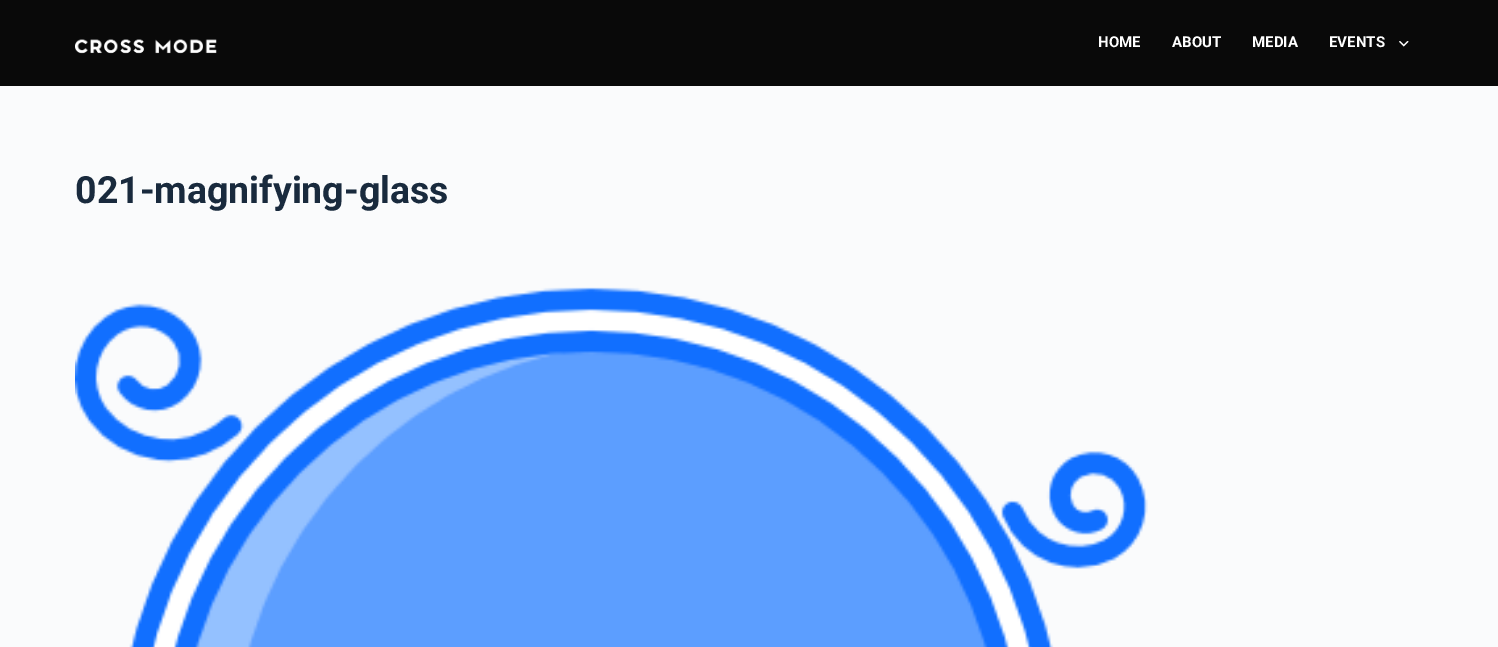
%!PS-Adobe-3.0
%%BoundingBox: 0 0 1498 647
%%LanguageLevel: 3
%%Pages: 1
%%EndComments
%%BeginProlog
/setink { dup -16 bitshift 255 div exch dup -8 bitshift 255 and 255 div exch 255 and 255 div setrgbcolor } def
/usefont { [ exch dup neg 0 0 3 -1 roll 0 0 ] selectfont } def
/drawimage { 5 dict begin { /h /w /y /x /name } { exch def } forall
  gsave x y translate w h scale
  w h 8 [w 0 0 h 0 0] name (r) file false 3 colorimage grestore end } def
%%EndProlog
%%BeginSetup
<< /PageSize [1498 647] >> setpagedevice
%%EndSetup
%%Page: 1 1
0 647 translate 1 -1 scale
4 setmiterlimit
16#FAFBFC setink
0 0 1498 647 rectfill
16#090909 setink
0 0 1498 86 rectfill
(img1.raw) 75 39 142 15 drawimage
/Roboto-Bold 15 usefont
16#FFFFFF setink
[
    [(HOME) 1098 47]
    [(ABOUT) 1172 47]
    [(MEDIA) 1252 47]
    [(EVENTS) 1329 47]
] { aload pop moveto show } forall
(img2.raw) 1399 41 10 6 drawimage
/Roboto-Bold 37.5 usefont
16#192A3D setink
75 203 moveto (021-magnifying-glass) show
(img3.raw) 75 287 1073 360 drawimage
showpage
%%EOF
